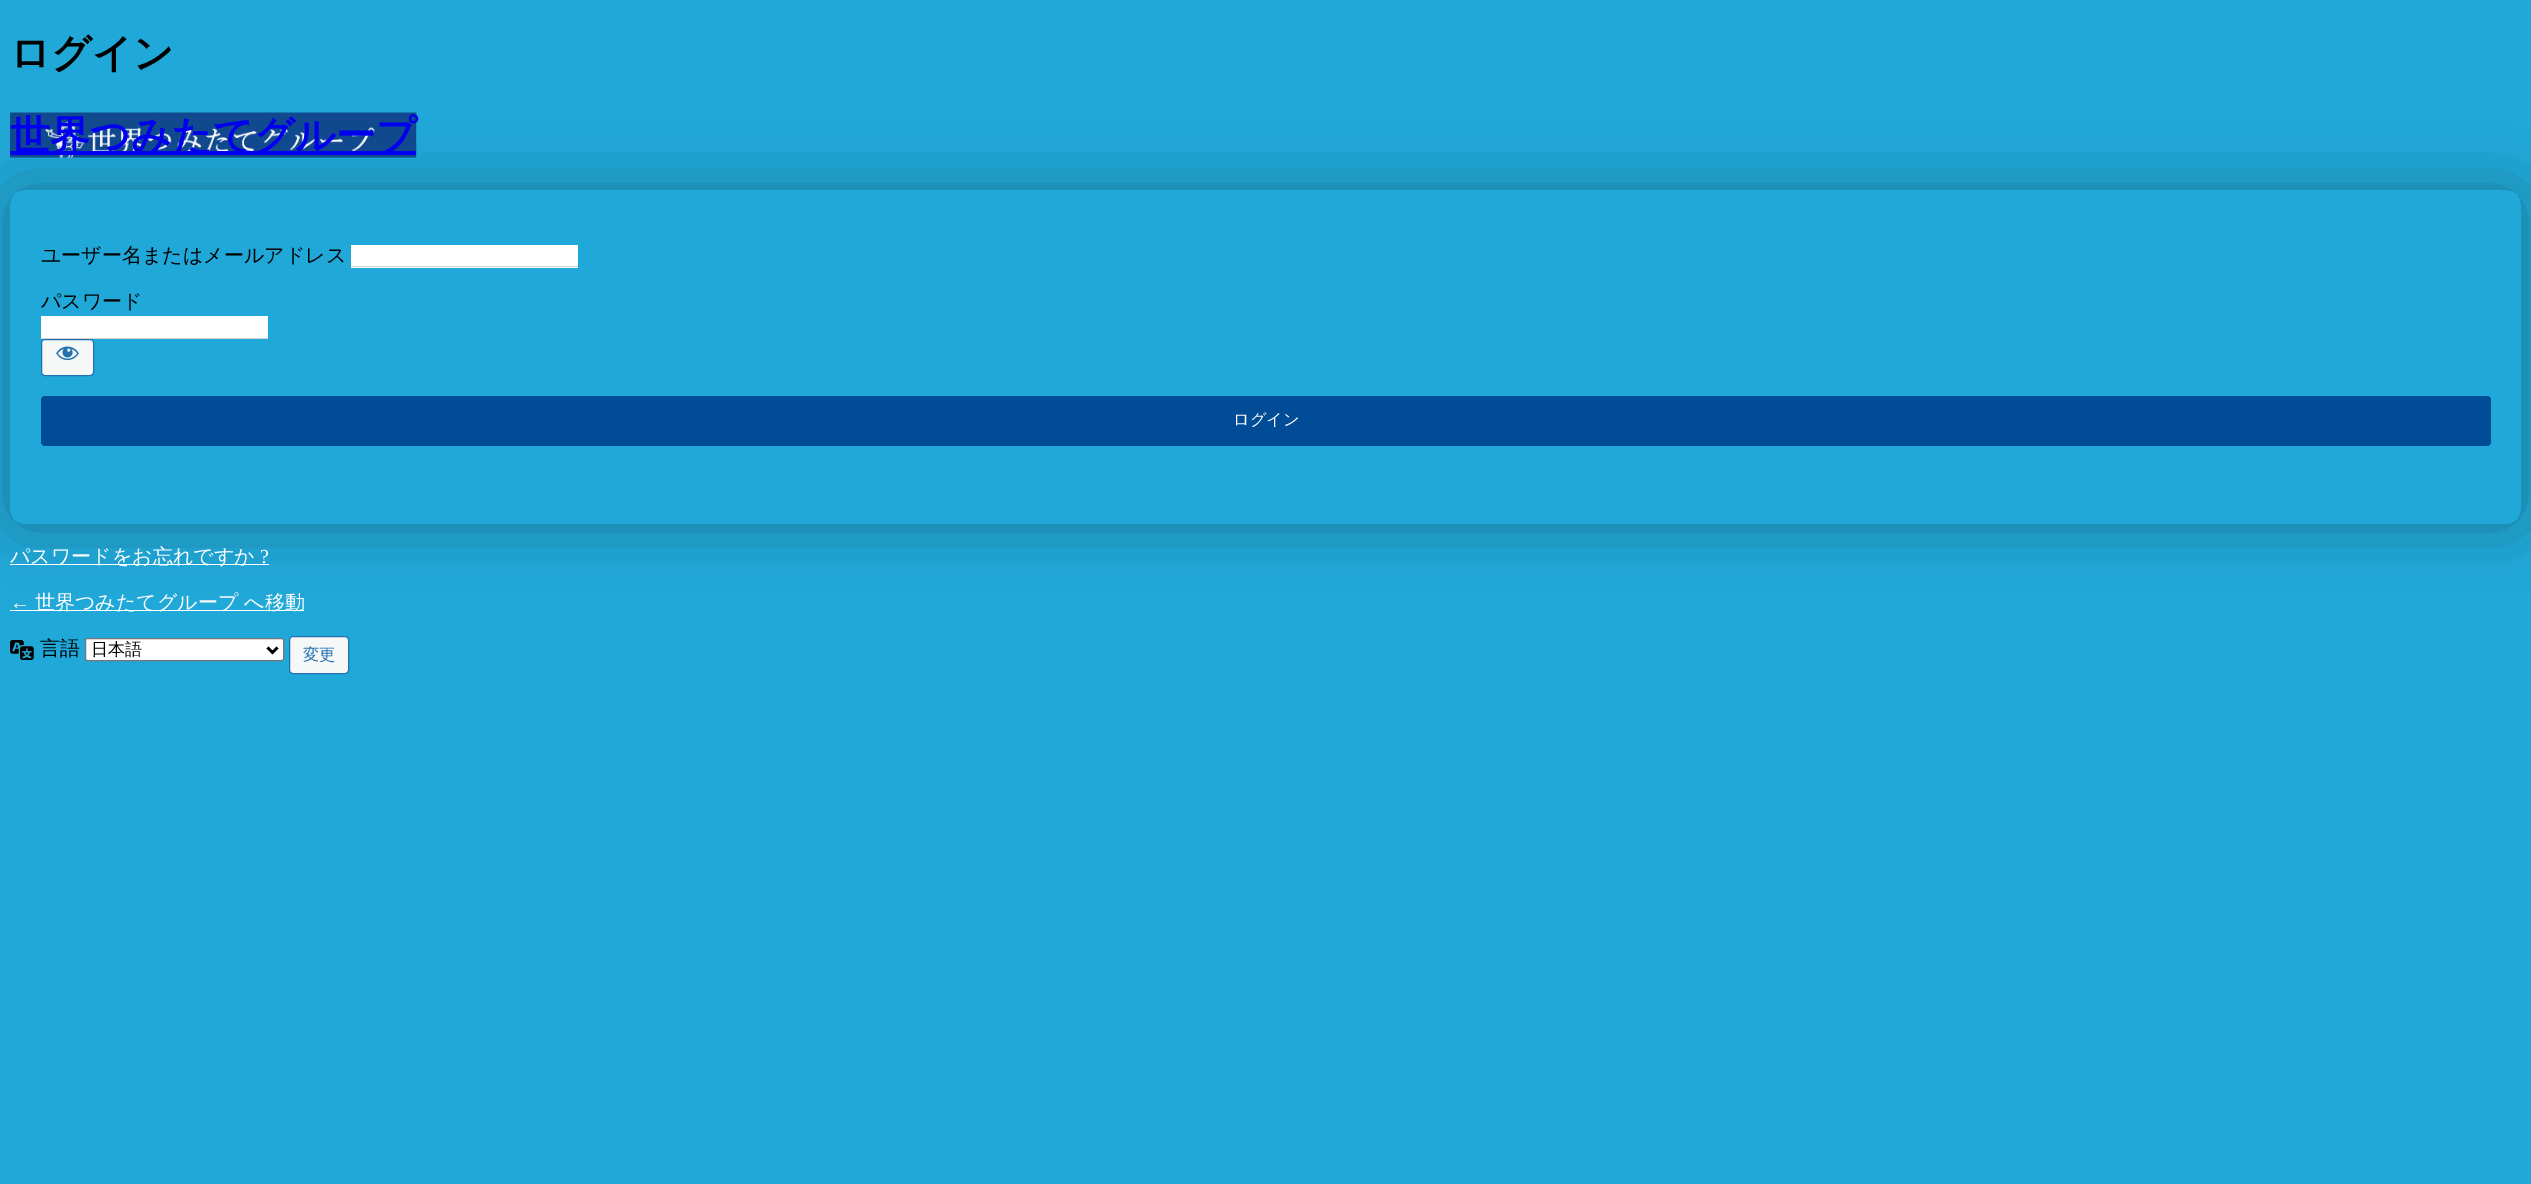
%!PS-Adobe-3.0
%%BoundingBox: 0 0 2531 1184
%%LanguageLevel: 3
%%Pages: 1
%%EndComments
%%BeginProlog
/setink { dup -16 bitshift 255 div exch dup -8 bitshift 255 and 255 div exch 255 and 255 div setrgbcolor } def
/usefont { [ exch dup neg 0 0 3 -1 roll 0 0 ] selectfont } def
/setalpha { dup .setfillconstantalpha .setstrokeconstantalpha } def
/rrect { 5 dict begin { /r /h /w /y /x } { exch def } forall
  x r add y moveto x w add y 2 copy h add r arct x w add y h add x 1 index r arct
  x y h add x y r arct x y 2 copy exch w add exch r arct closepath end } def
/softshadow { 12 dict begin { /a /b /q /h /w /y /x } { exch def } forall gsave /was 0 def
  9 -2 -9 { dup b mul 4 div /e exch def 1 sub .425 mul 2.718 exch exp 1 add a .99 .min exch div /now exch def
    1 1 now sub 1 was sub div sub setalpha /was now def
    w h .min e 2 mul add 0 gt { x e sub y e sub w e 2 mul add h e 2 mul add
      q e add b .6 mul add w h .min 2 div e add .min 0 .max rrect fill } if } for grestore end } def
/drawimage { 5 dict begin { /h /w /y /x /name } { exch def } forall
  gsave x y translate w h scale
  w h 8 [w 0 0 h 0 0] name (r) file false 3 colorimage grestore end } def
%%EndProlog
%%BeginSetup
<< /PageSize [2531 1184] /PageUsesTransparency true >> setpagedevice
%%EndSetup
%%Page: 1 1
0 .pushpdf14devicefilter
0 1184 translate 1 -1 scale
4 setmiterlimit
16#20A8D8 setink
0 0 2531 1184 rectfill
/WenQuanYiZenHei-Bold 40 usefont
16#000000 setink
10 67 moveto (ログイン) show
gsave
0 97 moveto 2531 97 lineto 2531 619 lineto 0 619 lineto closepath 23 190 moveto 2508 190 lineto 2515 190 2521 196 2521 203 curveto 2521 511 lineto 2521 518 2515 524 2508 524 curveto 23 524 lineto 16 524 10 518 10 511 curveto 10 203 lineto 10 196 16 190 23 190 curveto closepath eoclip newpath
16#020202 setink
10 191 2511 334 13 31 0.3 softshadow
grestore
(img1.raw) 10 112 407 46 drawimage
16#0000EE setink
10 151 406 4 rectfill
10 149 moveto (世界つみたてグループ) show
/WenQuanYiZenHei-Medium 20 usefont
16#000000 setink
41 262 moveto (ユーザー名またはメールアドレス) show
16#FFFFFF setink
351 245 227 23 rectfill
16#D2D2D2 setink
351 266 227 1 rectfill
16#000000 setink
41 308 moveto (パスワード) show
16#FFFFFF setink
41 316 227 22 rectfill
16#D2D2D2 setink
41 338 227 1 rectfill
16#F6F7F7 setink
41.5 339.5 52 36 3.5 rrect gsave fill grestore
16#2271B1 setink
stroke
(img2.raw) 56 346 23 15 drawimage
16#004C97 setink
41 396 2450 50 4 rrect fill
/WenQuanYiZenHei-Medium 16.25 usefont
16#FFFFFF setink
1233 425 moveto (ログイン) show
10 564 259 1 rectfill
/WenQuanYiZenHei-Medium 20 usefont
10 563 moveto (パスワードをお忘れですか) show
/LiberationSerif-Regular 20 usefont
260 563 moveto (?) show
10 609 moveto (←) show
10 610 294 1 rectfill
/WenQuanYiZenHei-Medium 20 usefont
35 609 moveto (世界つみたてグループ へ移動) show
(img3.raw) 10 640 24 20 drawimage
16#000000 setink
40 655 moveto (言語) show
16#FFFFFF setink
85.5 638.5 198 22 2 rrect gsave fill grestore
16#767676 setink
stroke
16#000000 setink
2.5 setlinewidth
267.5 647.5 moveto 272.5 652.5 lineto 277.5 647.5 lineto stroke
/WenQuanYiZenHei-Medium 17 usefont
91 655 moveto (日本語) show
16#F6F7F7 setink
289.5 636.5 59 37 3.5 rrect gsave fill grestore
16#2271B1 setink
1 setlinewidth
stroke
/WenQuanYiZenHei-Medium 16.25 usefont
303 660 moveto (変更) show
.poppdf14devicefilter showpage
%%EOF
